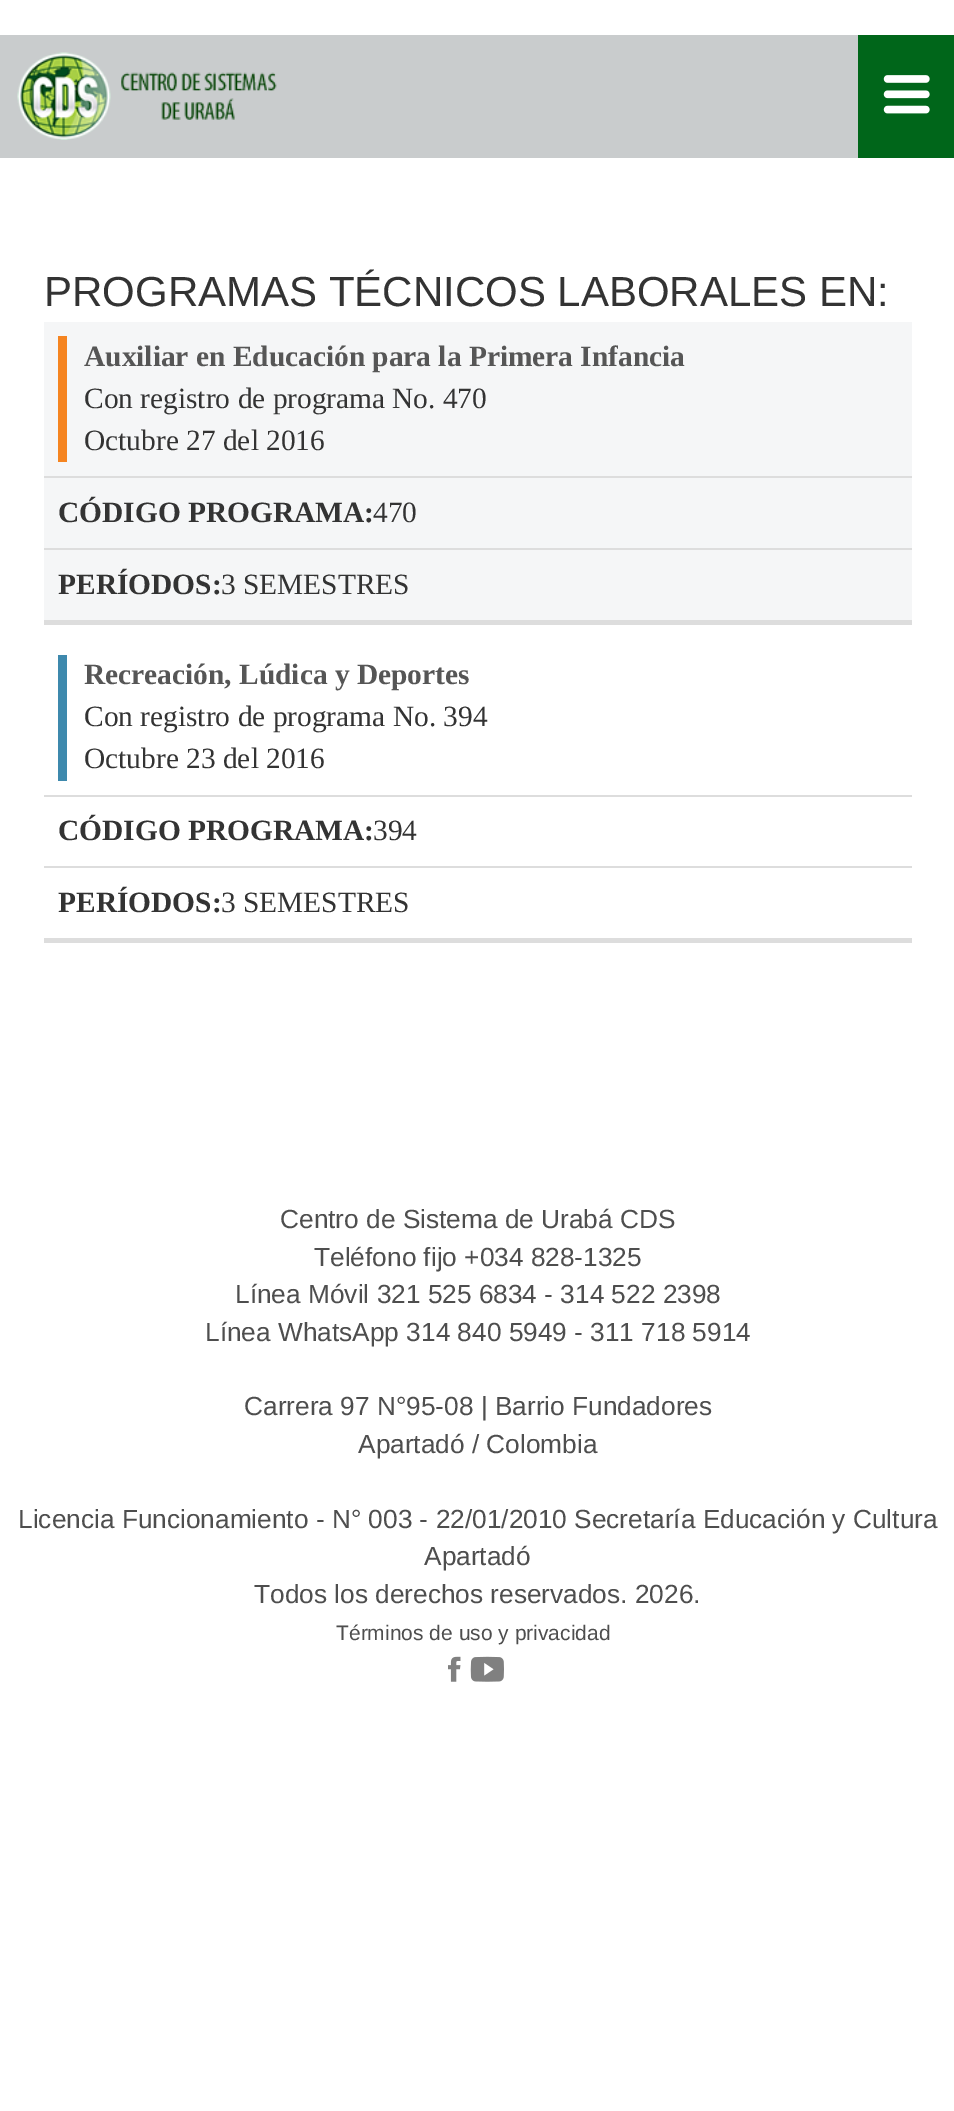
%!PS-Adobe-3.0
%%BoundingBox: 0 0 954 2111
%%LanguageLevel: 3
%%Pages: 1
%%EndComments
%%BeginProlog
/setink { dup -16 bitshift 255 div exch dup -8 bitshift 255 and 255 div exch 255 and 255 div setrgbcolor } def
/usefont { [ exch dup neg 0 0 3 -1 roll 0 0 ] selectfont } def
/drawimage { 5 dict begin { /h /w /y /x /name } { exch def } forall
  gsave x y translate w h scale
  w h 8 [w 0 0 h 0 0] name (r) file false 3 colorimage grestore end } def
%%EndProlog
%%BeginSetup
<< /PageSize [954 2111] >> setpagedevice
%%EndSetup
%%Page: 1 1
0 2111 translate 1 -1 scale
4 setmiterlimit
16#FFFFFF setink
0 0 954 2111 rectfill
16#C9CCCD setink
0 35 858 123 rectfill
(img1.raw) 17 52 260 88 drawimage
16#00661A setink
858 35 96 123 rectfill
(img2.raw) 883 75 47 39 drawimage
/LiberationSans-Regular 42 usefont
16#333333 setink
44 306 moveto (PROGRAMAS TÉCNICOS LABORALES EN:) show
[
    [44 322 868 298 16#F5F6F7]
    [44 620 868 5 16#DDDDDD]
    [44 476 868 2 16#DDDDDD]
    [58 336 9 126 16#F58420]
] { aload pop setink rectfill } forall
/LiberationSerif-Bold 29.4 usefont
16#565656 setink
84 366 moveto (Auxiliar en Educación para la Primera Infancia) show
/LiberationSerif-Regular 29.4 usefont
16#333333 setink
[
    [(Con registro de programa) 84 408]
    [(No. 470) 392 408]
    [(Octubre 27 del 2016) 84 450]
] { aload pop moveto show } forall
16#DDDDDD setink
44 548 868 2 rectfill
/LiberationSerif-Bold 29.4 usefont
16#333333 setink
58 522 moveto (CÓDIGO PROGRAMA:) show
/LiberationSerif-Regular 29.4 usefont
373 522 moveto (470) show
/LiberationSerif-Bold 29.4 usefont
58 594 moveto (PERÍODOS:) show
/LiberationSerif-Regular 29.4 usefont
221 594 moveto (3 SEMESTRES) show
[
    [44 938 868 5 16#DDDDDD]
    [44 795 868 2 16#DDDDDD]
    [58 655 9 126 16#3E89AD]
] { aload pop setink rectfill } forall
/LiberationSerif-Bold 29.4 usefont
16#565656 setink
84 684 moveto (Recreación, Lúdica y Deportes) show
/LiberationSerif-Regular 29.4 usefont
16#333333 setink
84 726 moveto (Con registro de programa No. 394) show
84 768 moveto (Octubre 23 del 2016) show
16#DDDDDD setink
44 866 868 2 rectfill
/LiberationSerif-Bold 29.4 usefont
16#333333 setink
58 840 moveto (CÓDIGO PROGRAMA:) show
/LiberationSerif-Regular 29.4 usefont
373 840 moveto (394) show
/LiberationSerif-Bold 29.4 usefont
58 912 moveto (PERÍODOS:) show
/LiberationSerif-Regular 29.4 usefont
221 912 moveto (3 SEMESTRES) show
/LiberationSans-Regular 26.25 usefont
16#4E4E4E setink
[
    [(Centro de Sistema de Urabá CDS) 280 1228]
    [(Teléfono fijo +034 828-1325) 314 1266]
    [(Línea Móvil 321 525 6834 - 314 522 2398) 235 1303]
    [(Línea WhatsApp 314 840 5949 - 311 718 5914) 205 1341]
    [(Carrera 97 N°95-08 | Barrio Fundadores) 244 1415]
    [(Apartadó / Colombia) 358 1453]
    [(Licencia Funcionamiento - N° 003 - 22/01/2010 Secretaría Educación y Cultura) 18 1528]
    [(Apartadó) 424 1565]
    [(Todos los derechos reservados. 2026.) 254 1603]
] { aload pop moveto show } forall
/LiberationSans-Regular 21 usefont
336 1640 moveto (Términos de uso y privacidad) show
(img3.raw) 448 1656 13 26 drawimage
(img4.raw) 470 1656 34 26 drawimage
showpage
%%EOF
